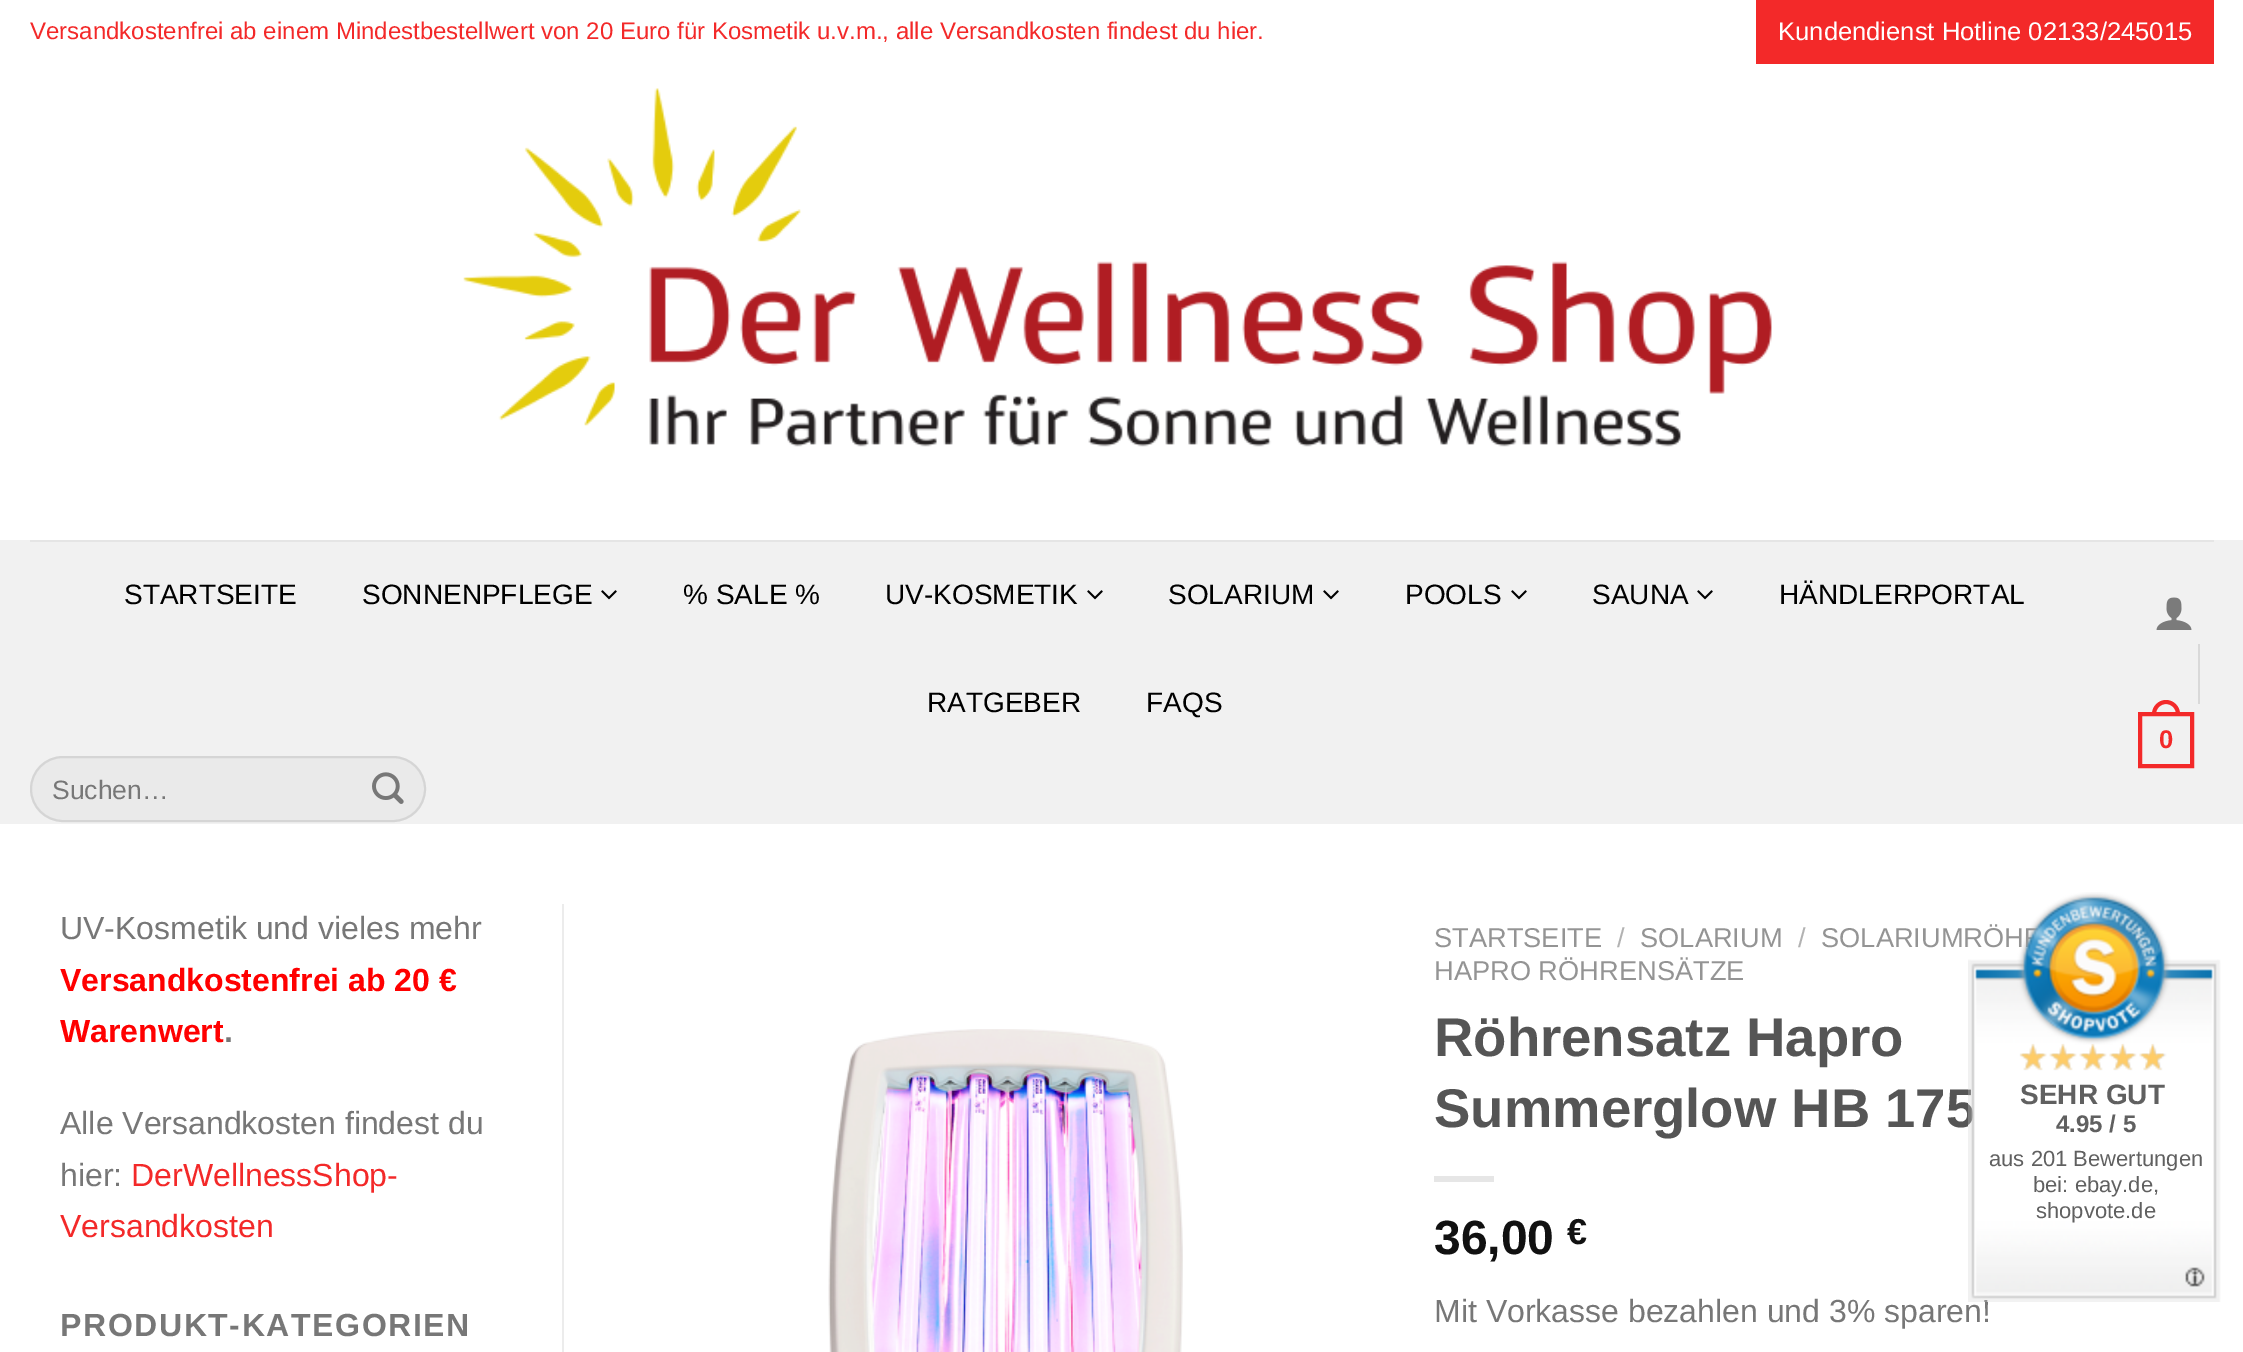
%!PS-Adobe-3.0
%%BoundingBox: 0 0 2243 1352
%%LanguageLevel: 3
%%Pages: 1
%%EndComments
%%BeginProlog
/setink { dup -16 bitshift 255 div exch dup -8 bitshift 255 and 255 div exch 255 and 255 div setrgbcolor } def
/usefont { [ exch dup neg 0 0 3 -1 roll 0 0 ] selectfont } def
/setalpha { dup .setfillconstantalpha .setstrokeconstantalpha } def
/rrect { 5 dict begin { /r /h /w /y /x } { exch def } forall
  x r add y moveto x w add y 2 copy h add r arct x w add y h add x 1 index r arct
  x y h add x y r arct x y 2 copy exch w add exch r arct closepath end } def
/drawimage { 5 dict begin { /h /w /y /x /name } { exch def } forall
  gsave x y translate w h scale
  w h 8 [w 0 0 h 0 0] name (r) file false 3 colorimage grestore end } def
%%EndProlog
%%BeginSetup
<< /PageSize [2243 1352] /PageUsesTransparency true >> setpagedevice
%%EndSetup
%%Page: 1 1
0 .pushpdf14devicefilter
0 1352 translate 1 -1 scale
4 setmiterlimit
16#FFFFFF setink
0 0 2243 1352 rectfill
/LiberationSans-Regular 24 usefont
16#F32929 setink
30 39 moveto (Versandkostenfrei ab einem Mindestbestellwert von 20 Euro für Kosmetik u.v.m., alle Versandkosten findest du hier.) show
1756 0 458 64 rectfill
/LiberationSans-Regular 25.6 usefont
16#FFFFFF setink
1778 40 moveto (Kundendienst Hotline 02133/245015) show
(img1.raw) 463 88 1309 359 drawimage
16#F1F1F1 setink
0 540 2243 284 rectfill
16#E5E5E5 setink
30 540 2184 2 rectfill
/LiberationSans-Regular 28 usefont
16#000000 setink
124 604 moveto (STARTSEITE) show
362 604 moveto (SONNENPFLEGE) show
(img2.raw) 601 590 16 10 drawimage
683 604 moveto (% SALE %) show
885 604 moveto (UV-KOSMETIK) show
(img2.raw) 1087 590 16 10 drawimage
1168 604 moveto (SOLARIUM) show
(img2.raw) 1323 590 16 10 drawimage
1405 604 moveto (POOLS) show
(img2.raw) 1511 590 16 10 drawimage
1592 604 moveto (SAUNA) show
(img2.raw) 1697 590 16 10 drawimage
[
    [(HÄNDLERPORTAL) 1779 604]
    [(RATGEBER) 927 712]
    [(FAQS) 1146 712]
] { aload pop moveto show } forall
16#EAEAEA setink
30 756 396 66 33 rrect fill
0.09 setalpha
16#000000 setink
2 setlinewidth
31 757 394 64 32 rrect stroke
/LiberationSans-Regular 26.5 usefont
1 setalpha
16#777777 setink
52 799 moveto (Suchen…) show
(img3.raw) 372 772 32 32 drawimage
(img4.raw) 2156 597 36 33 drawimage
16#D9D9D9 setink
2198 644 2 60 rectfill
16#F32929 setink
4 setlinewidth
2140 714 52 52 rectstroke
2166 700 moveto 2173.5 700 2180 706.5 2180 714 curveto 2180 716 lineto 2152 716 lineto 2152 714 lineto 2152 706.5 2158.5 700 2166 700 curveto closepath 2166 704 moveto 2171.5 704 2176 708.5 2176 714 curveto 2176 716 lineto 2156 716 lineto 2156 714 lineto 2156 708.5 2160.5 704 2166 704 curveto closepath eofill
/LiberationSans-Bold 25.6 usefont
2159 748 moveto 1 0 (0) ashow
/LiberationSans-Regular 32 usefont
16#777777 setink
60 939 moveto (UV-Kosmetik und vieles mehr) show
/LiberationSans-Bold 32 usefont
16#FF0000 setink
60 991 moveto (Versandkostenfrei ab 20 €) show
60 1042 moveto (Warenwert) show
16#777777 setink
224 1042 moveto (.) show
/LiberationSans-Regular 32 usefont
60 1134 moveto (Alle Versandkosten findest du) show
60 1186 moveto (hier:) show
16#F32929 setink
131 1186 moveto (DerWellnessShop-) show
60 1237 moveto (Versandkosten) show
/LiberationSans-Bold 32 usefont
16#777777 setink
60 1336 moveto 1.6 0 (PRODUKT-KATEGORIEN) ashow
16#ECECEC setink
562 904 2 448 rectfill
(img5.raw) 828 1029 355 323 drawimage
/LiberationSans-Regular 27.25 usefont
16#949494 setink
1434 947 moveto (STARTSEITE) show
16#B2B2B2 setink
1617 947 moveto (/) show
16#949494 setink
1640 947 moveto (SOLARIUM) show
16#B2B2B2 setink
1798 947 moveto (/) show
16#949494 setink
1821 947 moveto (SOLARIUMRÖH) show
1434 980 moveto (HAPRO RÖHRENSÄTZE) show
/LiberationSans-Bold 54.5 usefont
16#555555 setink
1434 1056 moveto (Röhrensatz Hapro) show
1434 1127 moveto (Summerglow HB 175) show
16#E6E6E6 setink
1434 1176 60 6 rectfill
/LiberationSans-Bold 48 usefont
16#111111 setink
1434 1254 moveto (36,00) show
/LiberationSans-Bold 36 usefont
1567 1244 moveto (€) show
/LiberationSans-Regular 32 usefont
16#777777 setink
1434 1322 moveto (Mit Vorkasse bezahlen und 3% sparen!) show
(img6.raw) 1968 892 253 410 drawimage
(img7.raw) 2020 1044 145 26 drawimage
/LiberationSans-Bold 28 usefont
16#606060 setink
2020 1104 moveto (SEHR GUT) show
/LiberationSans-Bold 24 usefont
2056 1132 moveto (4.95 / 5) show
/LiberationSans-Regular 22 usefont
[
    [(aus 201 Bewertungen) 1989 1166]
    [(bei: ebay.de,) 2033 1192]
    [(shopvote.de) 2036 1218]
] { aload pop moveto show } forall
.poppdf14devicefilter showpage
%%EOF
